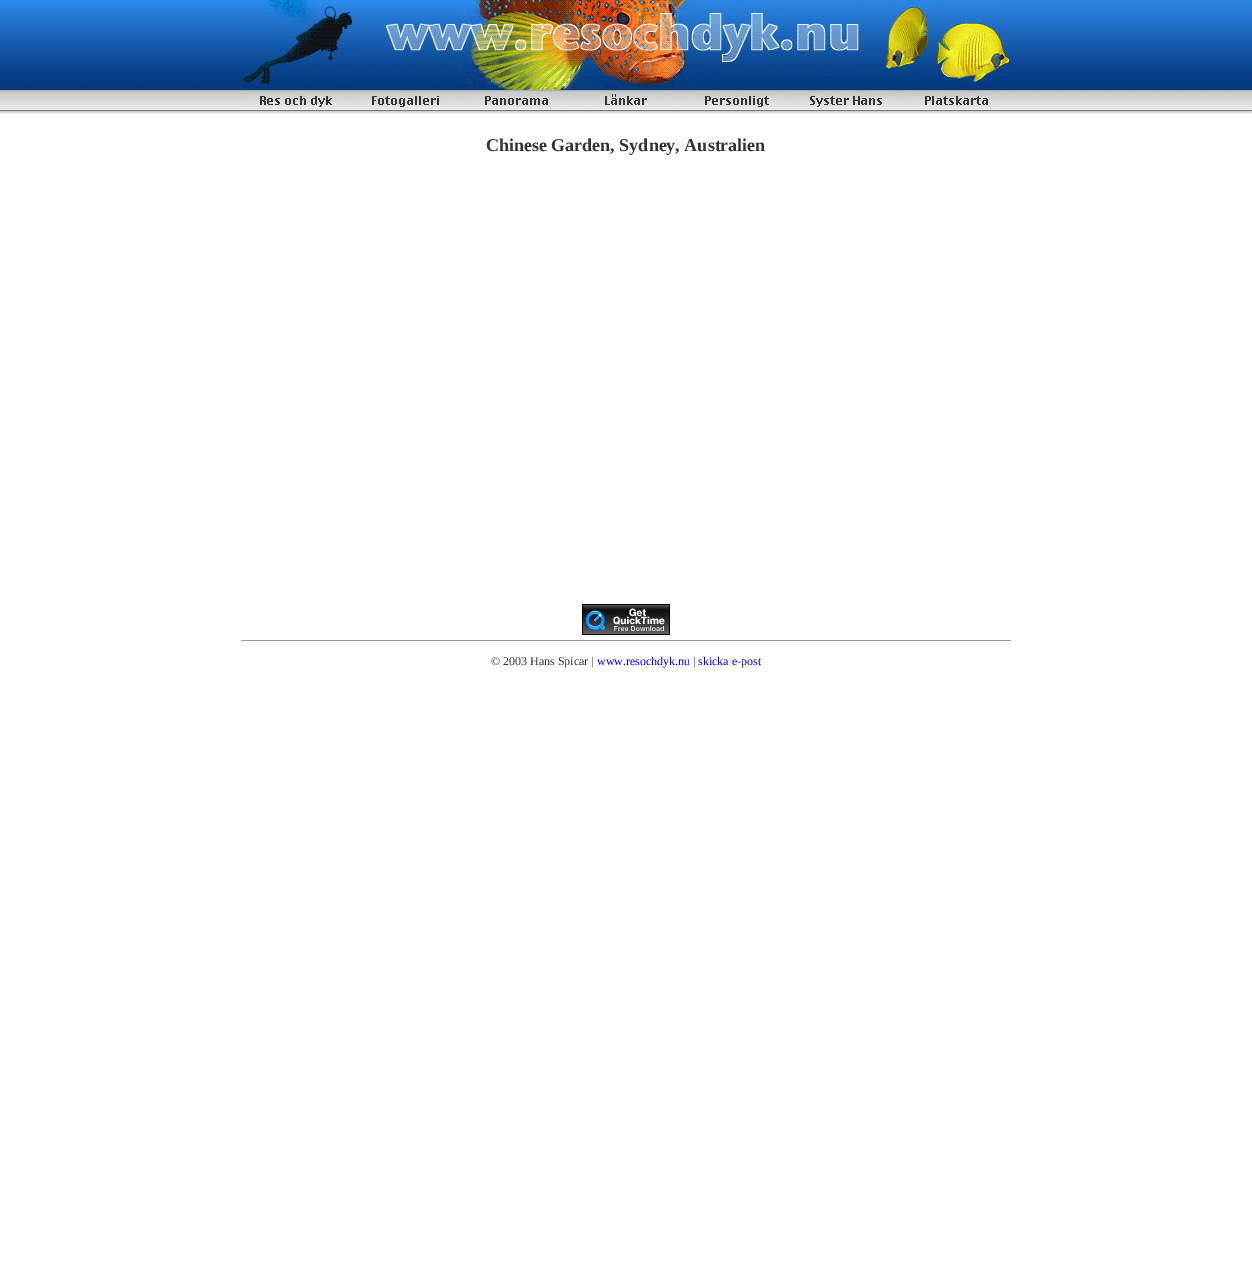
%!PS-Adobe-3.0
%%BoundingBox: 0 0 1252 1268
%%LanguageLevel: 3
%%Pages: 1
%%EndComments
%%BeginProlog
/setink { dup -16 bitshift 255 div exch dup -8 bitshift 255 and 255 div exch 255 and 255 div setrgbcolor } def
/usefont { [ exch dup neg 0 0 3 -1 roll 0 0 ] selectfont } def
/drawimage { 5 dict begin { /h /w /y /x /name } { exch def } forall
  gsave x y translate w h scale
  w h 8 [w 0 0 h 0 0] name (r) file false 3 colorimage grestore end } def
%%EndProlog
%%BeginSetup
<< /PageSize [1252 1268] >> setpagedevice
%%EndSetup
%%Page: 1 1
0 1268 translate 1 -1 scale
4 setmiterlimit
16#FFFFFF setink
0 0 1252 1268 rectfill
(img1.raw) 0 0 241 90 drawimage
(img2.raw) 241 0 770 90 drawimage
(img3.raw) 1011 0 241 90 drawimage
(img4.raw) 0 90 241 24 drawimage
(img5.raw) 241 90 110 24 drawimage
(img6.raw) 351 90 110 24 drawimage
(img7.raw) 461 90 110 24 drawimage
(img8.raw) 571 90 110 24 drawimage
(img9.raw) 681 90 110 24 drawimage
(img10.raw) 791 90 110 24 drawimage
(img11.raw) 901 90 110 24 drawimage
(img4.raw) 1011 90 241 24 drawimage
/LiberationSerif-Bold 18 usefont
16#333333 setink
486 151 moveto (Chinese Garden, Sydney, Australien) show
(img12.raw) 582 604 88 31 drawimage
16#999999 setink
241 640 770 1 rectfill
/LiberationSerif-Regular 12 usefont
16#333333 setink
491 665 moveto (© 2003 Hans Spicar |) show
16#0000FF setink
597 665 moveto (www.resochdyk.nu) show
16#333333 setink
693 665 moveto (|) show
16#0000FF setink
698 665 moveto (skicka e-post) show
showpage
%%EOF
